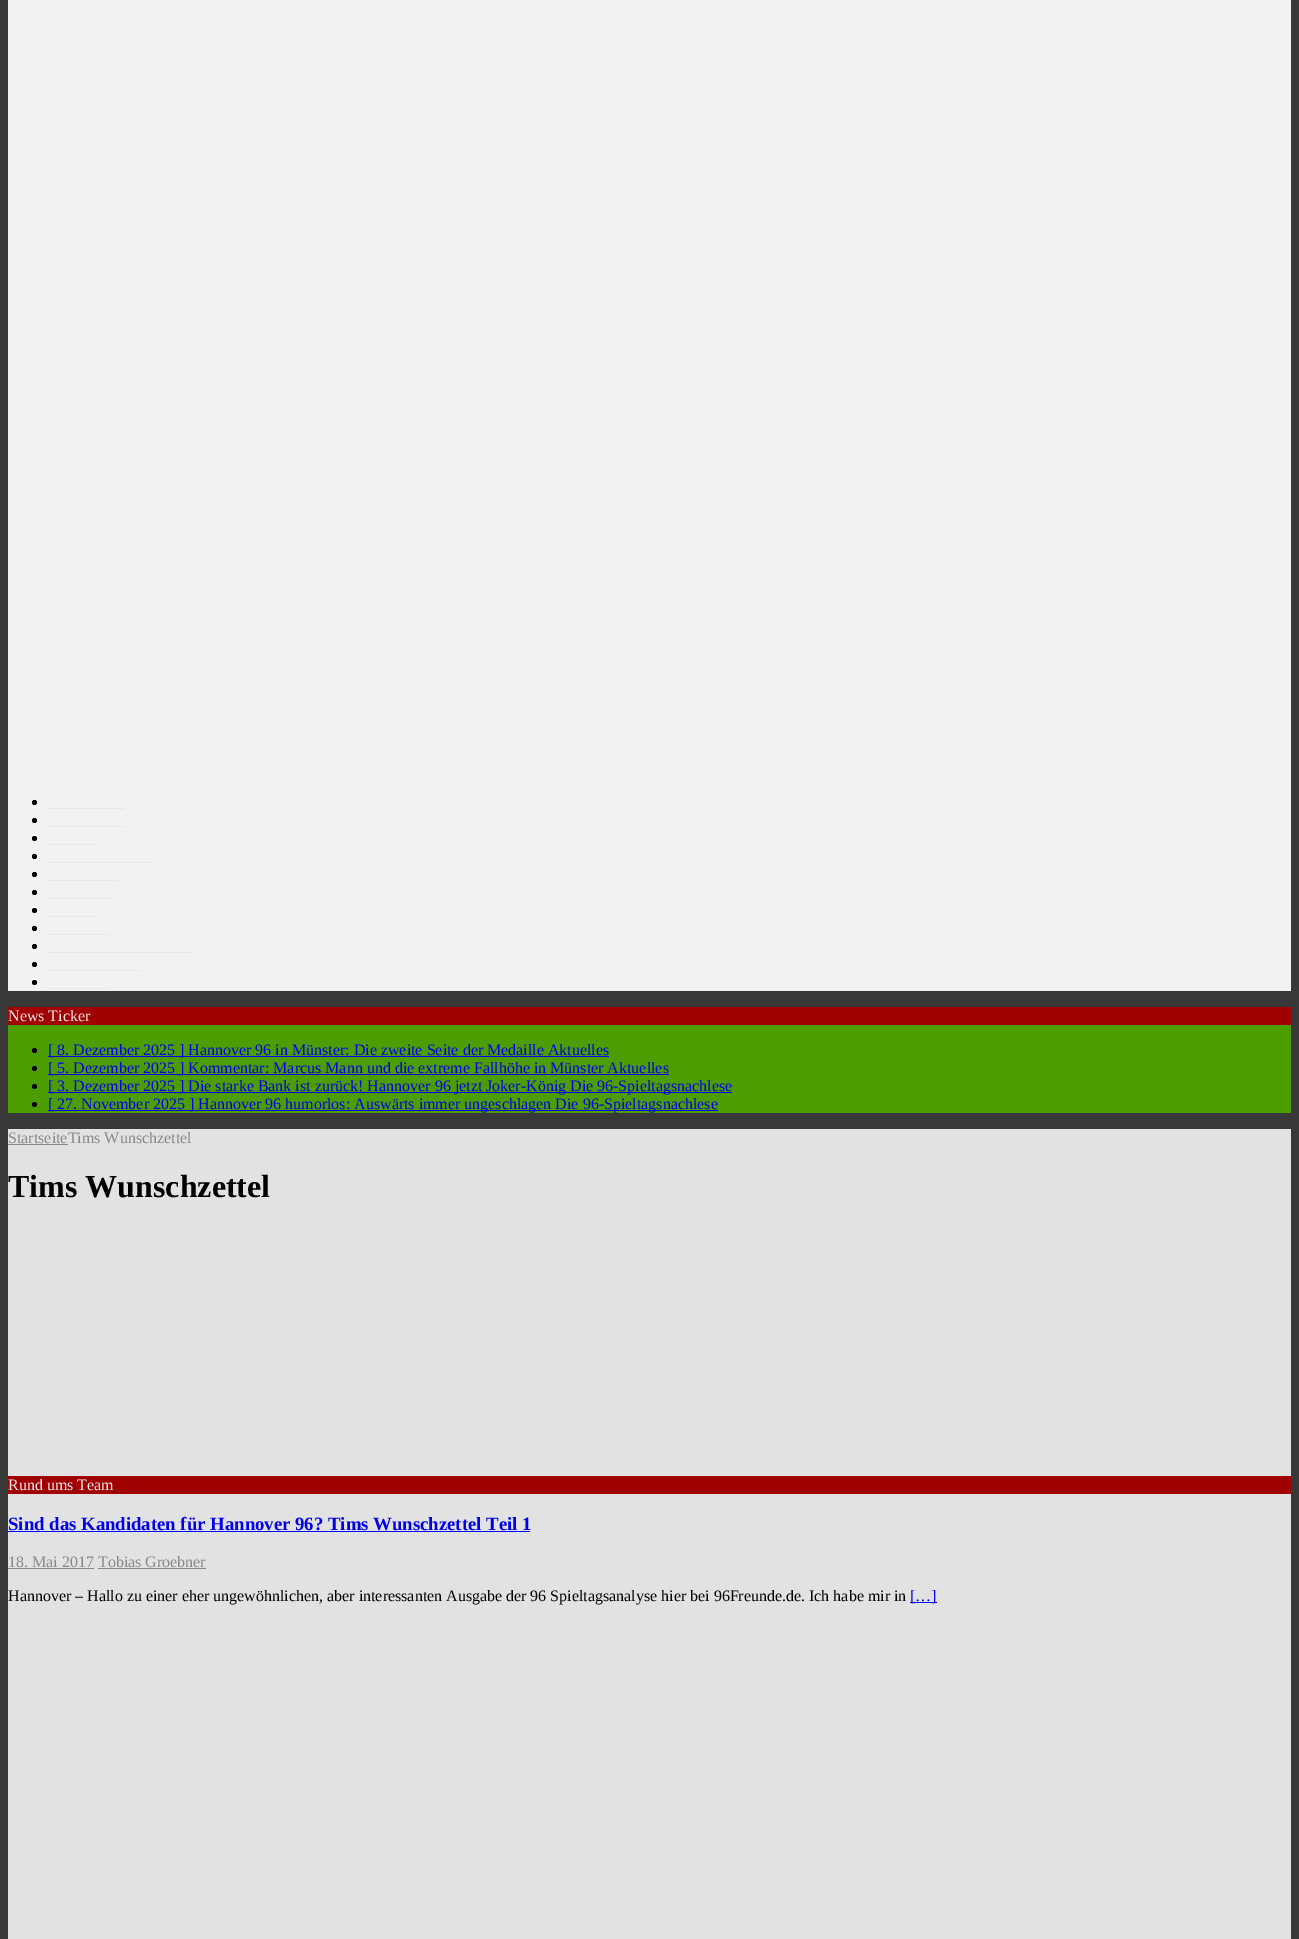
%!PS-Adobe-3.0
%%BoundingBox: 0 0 1299 1939
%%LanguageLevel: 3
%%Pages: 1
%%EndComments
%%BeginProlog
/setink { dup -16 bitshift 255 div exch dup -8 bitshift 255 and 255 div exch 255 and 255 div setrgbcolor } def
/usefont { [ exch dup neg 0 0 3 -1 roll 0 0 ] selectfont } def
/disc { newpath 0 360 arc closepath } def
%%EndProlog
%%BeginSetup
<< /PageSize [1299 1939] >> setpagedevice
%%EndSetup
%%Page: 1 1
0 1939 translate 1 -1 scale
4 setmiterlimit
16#383838 setink
0 0 1299 1939 rectfill
16#F2F2F2 setink
8 0 1283 991 rectfill
16#000000 setink
34.5 802.5 2.5 disc fill
16#E8E8E8 setink
48 808 76 1 rectfill
16#000000 setink
34.5 820.5 2.5 disc fill
16#E8E8E8 setink
48 826 76 1 rectfill
16#000000 setink
34.5 838.5 2.5 disc fill
16#E8E8E8 setink
48 844 48 1 rectfill
16#000000 setink
34.5 856.5 2.5 disc fill
16#E8E8E8 setink
48 862 106 1 rectfill
16#000000 setink
34.5 874.5 2.5 disc fill
16#E8E8E8 setink
48 880 69 1 rectfill
16#000000 setink
34.5 892.5 2.5 disc fill
16#E8E8E8 setink
48 898 64 1 rectfill
16#000000 setink
34.5 910.5 2.5 disc fill
16#E8E8E8 setink
48 916 48 1 rectfill
16#000000 setink
34.5 928.5 2.5 disc fill
16#E8E8E8 setink
48 934 62 1 rectfill
16#000000 setink
34.5 946.5 2.5 disc fill
16#E8E8E8 setink
48 952 146 1 rectfill
16#000000 setink
34.5 964.5 2.5 disc fill
16#E8E8E8 setink
48 970 93 1 rectfill
16#000000 setink
34.5 982.5 2.5 disc fill
[
    [48 988 58 1 16#E8E8E8]
    [8 1025 1283 88 16#4C9E00]
    [8 1007 1283 18 16#A00000]
] { aload pop setink rectfill } forall
/LiberationSerif-Regular 16 usefont
16#EAEAEA setink
8 1021 moveto (News Ticker) show
16#000000 setink
34.5 1050.5 2.5 disc fill
16#0000EE setink
48 1056 561 1 rectfill
48 1055 moveto ([ 8. Dezember 2025 ] Hannover 96 in Münster: Die zweite Seite der Medaille Aktuelles) show
16#000000 setink
34.5 1068.5 2.5 disc fill
16#0000EE setink
48 1074 621 1 rectfill
48 1073 moveto ([ 5. Dezember 2025 ] Kommentar: Marcus Mann und die extreme Fallhöhe in Münster Aktuelles) show
16#000000 setink
34.5 1086.5 2.5 disc fill
16#0000EE setink
48 1092 684 1 rectfill
48 1091 moveto ([ 3. Dezember 2025 ] Die starke Bank ist zurück! Hannover 96 jetzt Joker-König Die 96-Spieltagsnachlese) show
16#000000 setink
34.5 1104.5 2.5 disc fill
16#0000EE setink
48 1110 670 1 rectfill
48 1109 moveto ([ 27. November 2025 ] Hannover 96 humorlos: Auswärts immer ungeschlagen Die 96-Spieltagsnachlese) show
16#E2E2E2 setink
8 1129 1283 810 rectfill
16#898989 setink
8 1143 moveto (StartseiteTims Wunschzettel) show
8 1144 60 1 rectfill
/LiberationSerif-Bold 32 usefont
16#000000 setink
8 1197 moveto (Tims Wunschzettel) show
16#A00000 setink
8 1476 1283 18 rectfill
/LiberationSerif-Regular 16 usefont
16#EAEAEA setink
8 1490 moveto (Rund ums Team) show
/LiberationSerif-Bold 18.75 usefont
16#0000EE setink
8 1530 moveto (Sind das Kandidaten für Hannover 96? Tims Wunschzettel Teil 1) show
8 1531 522 1 rectfill
/LiberationSerif-Regular 16 usefont
16#898989 setink
8 1567 moveto (18. Mai 2017 Tobias Groebner) show
8 1568 86 1 rectfill
98 1568 108 1 rectfill
16#000000 setink
8 1601 moveto (Hannover – Hallo zu einer eher ungewöhnlichen, aber interessanten Ausgabe der 96 Spieltagsanalyse hier bei 96Freunde.de. Ich habe mir in) show
16#0000EE setink
910 1602 27 1 rectfill
910 1601 moveto ([…]) show
showpage
%%EOF
